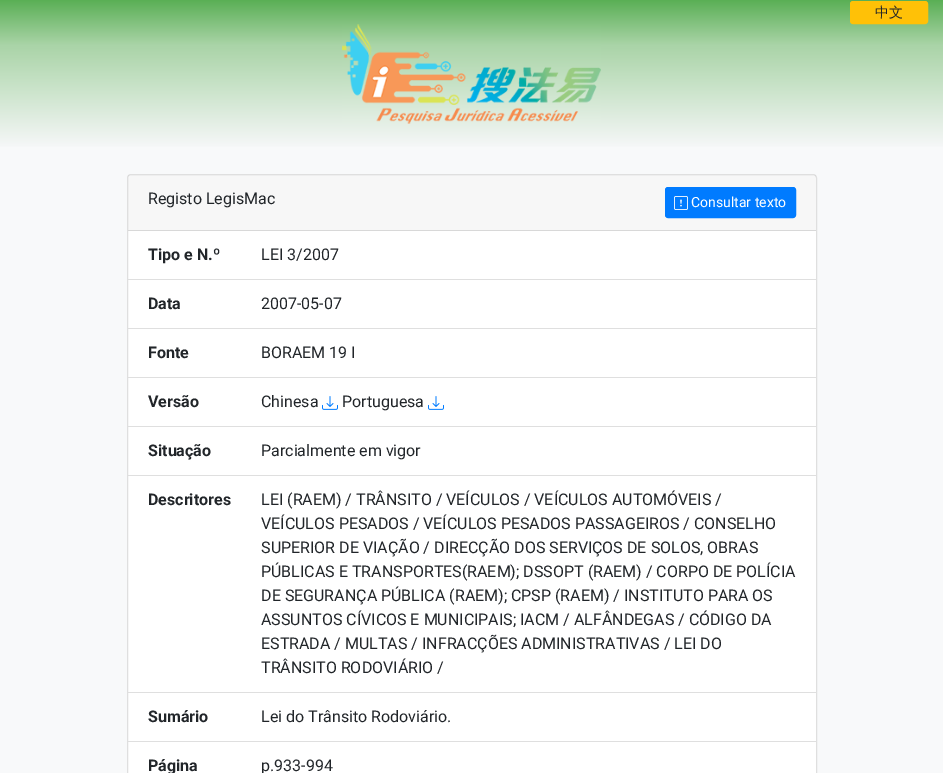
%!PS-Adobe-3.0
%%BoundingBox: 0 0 943 773
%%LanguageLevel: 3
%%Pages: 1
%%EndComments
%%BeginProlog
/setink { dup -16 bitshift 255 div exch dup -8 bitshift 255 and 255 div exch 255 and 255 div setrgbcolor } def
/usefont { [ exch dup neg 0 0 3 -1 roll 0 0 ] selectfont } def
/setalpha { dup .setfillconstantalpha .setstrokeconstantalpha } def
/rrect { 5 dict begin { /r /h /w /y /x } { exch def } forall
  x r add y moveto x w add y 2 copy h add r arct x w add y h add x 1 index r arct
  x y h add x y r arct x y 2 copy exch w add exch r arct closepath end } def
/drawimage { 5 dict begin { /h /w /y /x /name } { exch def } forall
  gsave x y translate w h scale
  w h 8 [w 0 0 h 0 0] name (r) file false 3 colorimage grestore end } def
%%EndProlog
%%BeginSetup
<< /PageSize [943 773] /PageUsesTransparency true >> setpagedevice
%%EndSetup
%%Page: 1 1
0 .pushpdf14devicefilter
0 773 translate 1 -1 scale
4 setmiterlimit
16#F8F9FA setink
0 0 943 773 rectfill
gsave 0 0 moveto 943 0 lineto 943 147 lineto 0 147 lineto closepath clip newpath
<< /ShadingType 2 /ColorSpace /DeviceRGB /Coords [472 0 472 150] /Extend [true true] /Function << /FunctionType 3 /Domain [0 1] /Functions [<< /FunctionType 2 /Domain [0 1] /C0 [0.353 0.686 0.333] /C1 [0.663 0.831 0.655] /N 1 >> << /FunctionType 2 /Domain [0 1] /C0 [0.663 0.831 0.655] /C1 [0.973 0.973 0.98] /N 1 >>] /Bounds [0.3] /Encode [0 1 0 1] >> >> shfill grestore
16#FFC107 setink
850.5 1.5 77 22 2.5 rrect gsave fill grestore
stroke
/WenQuanYiZenHei-Medium 14 usefont
16#212529 setink
875 17 moveto (中文) show
(img1.raw) 342 24 259 100 drawimage
16#FFFFFF setink
127.5 174.5 689 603 3.5 rrect gsave fill grestore
16#DFDFDF setink
stroke
0.03 setalpha
16#000000 setink
128 175 688 55 rectfill
1 setalpha
16#D8D8D8 setink
128 230 688 1 rectfill
/Roboto-Regular 16 usefont
16#212529 setink
148 204 moveto (Registo LegisMac) show
16#007BFF setink
665.5 187.5 130 30 2.5 rrect gsave fill grestore
stroke
(img2.raw) 674 196 14 14 drawimage
/Roboto-Regular 14 usefont
16#FFFFFF setink
691 207 moveto (Consultar texto) show
16#DFDFDF setink
128 279 688 1 rectfill
/Roboto-Bold 16 usefont
16#212529 setink
148 260 moveto (Tipo e N.º) show
/Roboto-Regular 16 usefont
261 260 moveto (LEI 3/2007) show
16#DFDFDF setink
128 328 688 1 rectfill
/Roboto-Bold 16 usefont
16#212529 setink
148 309 moveto (Data) show
/Roboto-Regular 16 usefont
261 309 moveto (2007-05-07) show
16#DFDFDF setink
128 377 688 1 rectfill
/Roboto-Bold 16 usefont
16#212529 setink
148 358 moveto (Fonte) show
/Roboto-Regular 16 usefont
261 358 moveto (BORAEM 19 I) show
16#DFDFDF setink
128 426 688 1 rectfill
/Roboto-Bold 16 usefont
16#212529 setink
148 407 moveto (Versão) show
/Roboto-Regular 16 usefont
261 407 moveto (Chinesa) show
(img3.raw) 322 396 16 14 drawimage
342 407 moveto (Portuguesa) show
(img3.raw) 428 396 16 14 drawimage
16#DFDFDF setink
128 475 688 1 rectfill
/Roboto-Bold 16 usefont
16#212529 setink
148 456 moveto (Situação) show
/Roboto-Regular 16 usefont
261 456 moveto (Parcialmente em vigor) show
16#DFDFDF setink
128 692 688 1 rectfill
/Roboto-Bold 16 usefont
16#212529 setink
148 505 moveto (Descritores) show
/Roboto-Regular 16 usefont
[
    [(LEI \(RAEM\) / TRÂNSITO / VEÍCULOS / VEÍCULOS AUTOMÓVEIS /) 261 505]
    [(VEÍCULOS PESADOS / VEÍCULOS PESADOS PASSAGEIROS / CONSELHO) 261 529]
    [(SUPERIOR DE VIAÇÃO / DIRECÇÃO DOS SERVIÇOS DE SOLOS, OBRAS) 261 553]
    [(PÚBLICAS E TRANSPORTES\(RAEM\); DSSOPT \(RAEM\) / CORPO DE POLÍCIA) 261 577]
    [(DE SEGURANÇA PÚBLICA \(RAEM\); CPSP \(RAEM\) / INSTITUTO PARA OS) 261 601]
    [(ASSUNTOS CÍVICOS E MUNICIPAIS; IACM / ALFÂNDEGAS / CÓDIGO DA) 261 625]
    [(ESTRADA / MULTAS / INFRACÇÕES ADMINISTRATIVAS / LEI DO) 261 649]
    [(TRÂNSITO RODOVIÁRIO /) 261 673]
] { aload pop moveto show } forall
16#DFDFDF setink
128 741 688 1 rectfill
/Roboto-Bold 16 usefont
16#212529 setink
148 722 moveto (Sumário) show
/Roboto-Regular 16 usefont
261 722 moveto (Lei do Trânsito Rodoviário.) show
/Roboto-Bold 16 usefont
148 771 moveto (Página) show
/Roboto-Regular 16 usefont
261 771 moveto (p.933-994) show
.poppdf14devicefilter showpage
%%EOF
